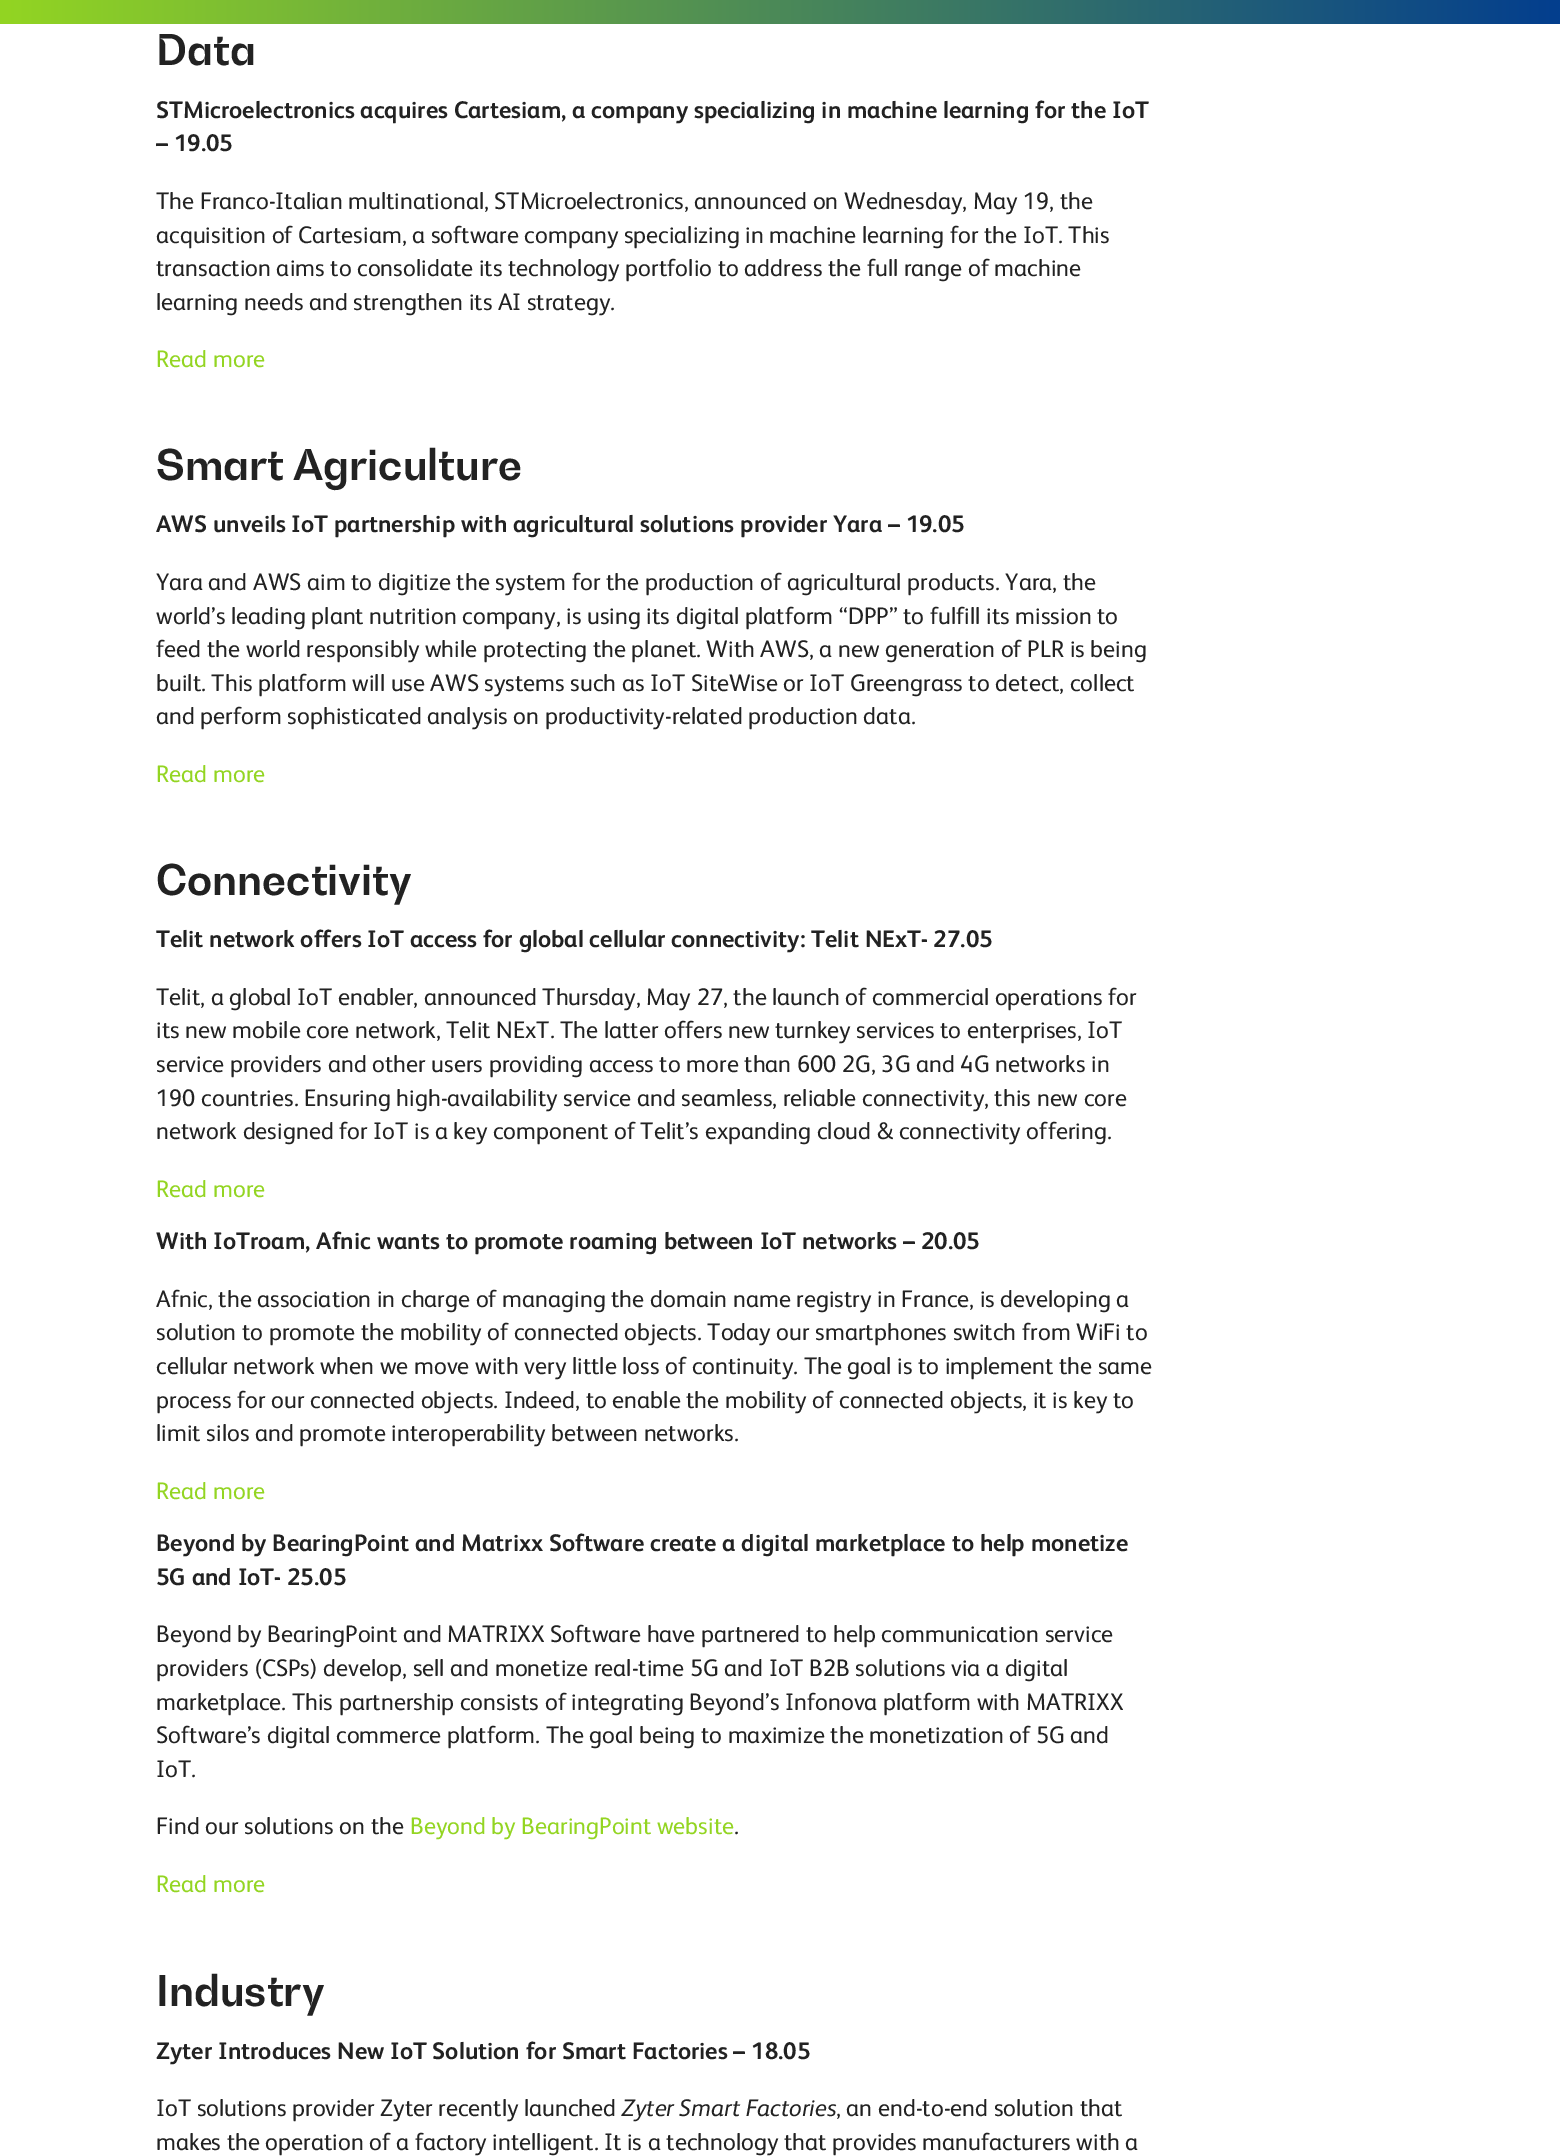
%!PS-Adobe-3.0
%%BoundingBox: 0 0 1560 2156
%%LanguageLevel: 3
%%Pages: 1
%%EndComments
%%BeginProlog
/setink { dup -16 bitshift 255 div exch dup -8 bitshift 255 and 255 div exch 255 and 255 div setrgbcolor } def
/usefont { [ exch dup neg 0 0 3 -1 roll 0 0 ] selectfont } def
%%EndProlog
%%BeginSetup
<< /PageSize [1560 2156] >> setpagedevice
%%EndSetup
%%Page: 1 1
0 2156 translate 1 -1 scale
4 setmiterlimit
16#FFFFFF setink
0 0 1560 2156 rectfill
gsave 0 0 moveto 1560 0 lineto 1560 24 lineto 0 24 lineto closepath clip newpath
<< /ShadingType 2 /ColorSpace /DeviceRGB /Coords [0 -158 1560 -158] /Extend [true true] /Function << /FunctionType 2 /Domain [0 1] /C0 [0.576 0.835 0.133] /C1 [0.012 0.243 0.557] /N 1 >> >> shfill grestore
/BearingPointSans-Bold 42 usefont
16#222222 setink
156 65 moveto (Data) show
/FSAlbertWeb-Bold 24 usefont
156 118 moveto (STMicroelectronics acquires Cartesiam, a company specializing in machine learning for the IoT) show
156 151 moveto (– 19.05) show
/FSAlbertWeb-Regular 24 usefont
[
    [(The Franco-Italian multinational, STMicroelectronics, announced on Wednesday, May 19, the) 156 209]
    [(acquisition of Cartesiam, a software company specializing in machine learning for the IoT. This) 156 243]
    [(transaction aims to consolidate its technology portfolio to address the full range of machine) 156 276]
    [(learning needs and strengthen its AI strategy.) 156 310]
] { aload pop moveto show } forall
16#93D522 setink
156 367 moveto (Read more) show
/BearingPointSans-Bold 42 usefont
16#222222 setink
156 480 moveto (Smart Agriculture) show
/FSAlbertWeb-Bold 24 usefont
156 532 moveto (AWS unveils IoT partnership with agricultural solutions provider Yara – 19.05) show
/FSAlbertWeb-Regular 24 usefont
[
    [(Yara and AWS aim to digitize the system for the production of agricultural products. Yara, the) 156 590]
    [(world’s leading plant nutrition company, is using its digital platform “DPP” to fulfill its mission to) 156 624]
    [(feed the world responsibly while protecting the planet. With AWS, a new generation of PLR is being) 156 657]
    [(built. This platform will use AWS systems such as IoT SiteWise or IoT Greengrass to detect, collect) 156 691]
    [(and perform sophisticated analysis on productivity-related production data.) 156 724]
] { aload pop moveto show } forall
16#93D522 setink
156 782 moveto (Read more) show
/BearingPointSans-Bold 42 usefont
16#222222 setink
156 895 moveto (Connectivity) show
/FSAlbertWeb-Bold 24 usefont
156 947 moveto (Telit network offers IoT access for global cellular connectivity: Telit NExT- 27.05) show
/FSAlbertWeb-Regular 24 usefont
[
    [(Telit, a global IoT enabler, announced Thursday, May 27, the launch of commercial operations for) 156 1005]
    [(its new mobile core network, Telit NExT. The latter offers new turnkey services to enterprises, IoT) 156 1038]
    [(service providers and other users providing access to more than 600 2G, 3G and 4G networks in) 156 1072]
    [(190 countries. Ensuring high-availability service and seamless, reliable connectivity, this new core) 156 1106]
    [(network designed for IoT is a key component of Telit’s expanding cloud & connectivity offering.) 156 1139]
] { aload pop moveto show } forall
16#93D522 setink
156 1197 moveto (Read more) show
/FSAlbertWeb-Bold 24 usefont
16#222222 setink
156 1249 moveto (With IoTroam, Afnic wants to promote roaming between IoT networks – 20.05) show
/FSAlbertWeb-Regular 24 usefont
[
    [(Afnic, the association in charge of managing the domain name registry in France, is developing a) 156 1307]
    [(solution to promote the mobility of connected objects. Today our smartphones switch from WiFi to) 156 1340]
    [(cellular network when we move with very little loss of continuity. The goal is to implement the same) 156 1374]
    [(process for our connected objects. Indeed, to enable the mobility of connected objects, it is key to) 156 1408]
    [(limit silos and promote interoperability between networks.) 156 1441]
] { aload pop moveto show } forall
16#93D522 setink
156 1499 moveto (Read more) show
/FSAlbertWeb-Bold 24 usefont
16#222222 setink
156 1551 moveto (Beyond by BearingPoint and Matrixx Software create a digital marketplace to help monetize) show
156 1585 moveto (5G and IoT- 25.05) show
/FSAlbertWeb-Regular 24 usefont
[
    [(Beyond by BearingPoint and MATRIXX Software have partnered to help communication service) 156 1642]
    [(providers \(CSPs\) develop, sell and monetize real-time 5G and IoT B2B solutions via a digital) 156 1676]
    [(marketplace. This partnership consists of integrating Beyond’s Infonova platform with MATRIXX) 156 1710]
    [(Software’s digital commerce platform. The goal being to maximize the monetization of 5G and) 156 1743]
    [(IoT.) 156 1777]
    [(Find our solutions on the) 156 1834]
] { aload pop moveto show } forall
16#93D522 setink
410 1834 moveto (Beyond by BearingPoint website) show
16#222222 setink
734 1834 moveto (.) show
16#93D522 setink
156 1892 moveto (Read more) show
/BearingPointSans-Bold 42 usefont
16#222222 setink
156 2006 moveto (Industry) show
/FSAlbertWeb-Bold 24 usefont
156 2059 moveto (Zyter Introduces New IoT Solution for Smart Factories – 18.05) show
/FSAlbertWeb-Regular 24 usefont
156 2116 moveto (IoT solutions provider Zyter recently launched) show
/FSAlbertWeb-Italic 24 usefont
622 2116 moveto (Zyter Smart Factories) show
/FSAlbertWeb-Regular 24 usefont
836 2116 moveto (, an end-to-end solution that) show
156 2150 moveto (makes the operation of a factory intelligent. It is a technology that provides manufacturers with a) show
showpage
%%EOF
